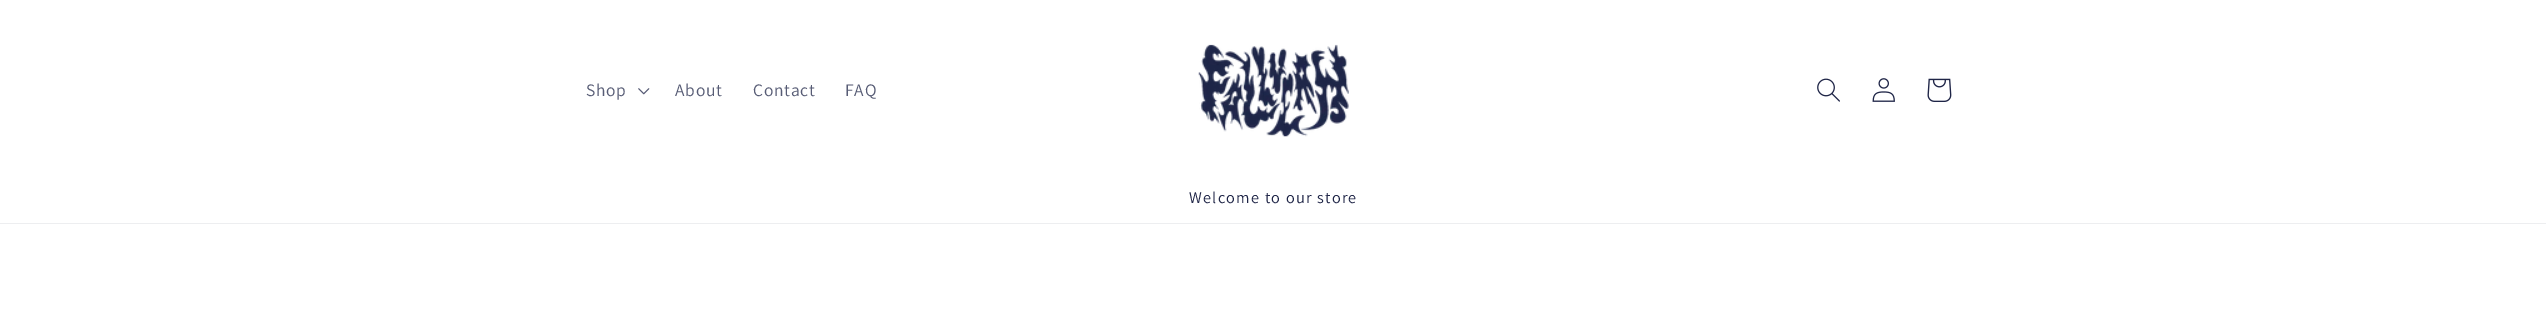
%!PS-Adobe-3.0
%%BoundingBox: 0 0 2546 325
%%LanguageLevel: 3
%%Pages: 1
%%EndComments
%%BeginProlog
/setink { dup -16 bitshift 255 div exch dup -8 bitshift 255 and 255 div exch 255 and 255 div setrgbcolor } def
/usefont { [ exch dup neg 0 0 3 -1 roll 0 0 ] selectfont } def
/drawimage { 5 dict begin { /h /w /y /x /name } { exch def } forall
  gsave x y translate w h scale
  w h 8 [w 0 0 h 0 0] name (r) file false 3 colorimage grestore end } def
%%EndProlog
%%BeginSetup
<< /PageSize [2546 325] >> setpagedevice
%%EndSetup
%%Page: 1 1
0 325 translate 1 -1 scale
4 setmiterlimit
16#FFFFFF setink
0 0 2546 325 rectfill
/Assistant-Regular 17.5 usefont
16#575C75 setink
586 96 moveto 0.75 0 (Shop) ashow
(img1.raw) 638 88 12 7 drawimage
675 96 moveto 0.75 0 (About) ashow
753 96 moveto 0.75 0 (Contact) ashow
845 96 moveto 0.75 0 (FAQ) ashow
(img2.raw) 1198 44 151 93 drawimage
(img3.raw) 1817 78 23 24 drawimage
(img4.raw) 1872 78 23 24 drawimage
(img5.raw) 1927 78 25 24 drawimage
16#EDEEF0 setink
0 223 2546 1 rectfill
/Assistant-Regular 16.25 usefont
16#1F2547 setink
1189 203 moveto 1.25 0 (Welcome to our store) ashow
showpage
%%EOF
